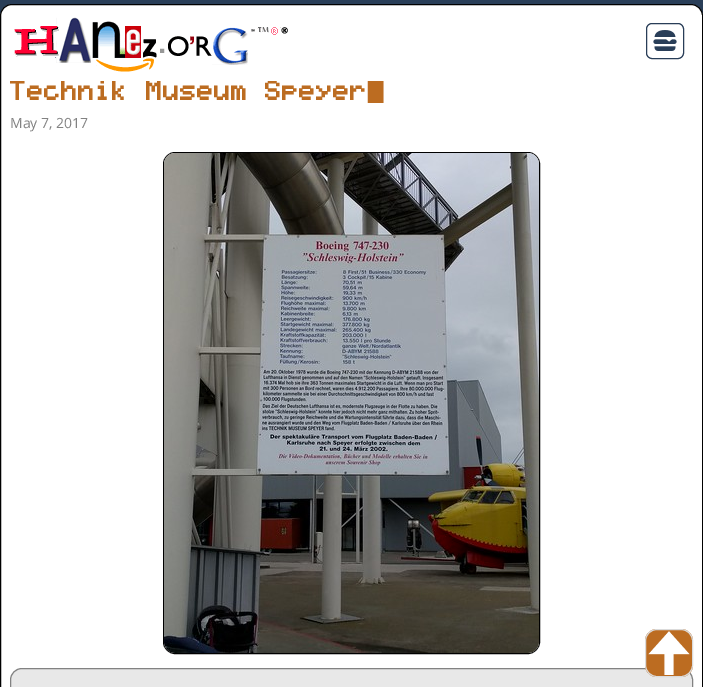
%!PS-Adobe-3.0
%%BoundingBox: 0 0 703 687
%%LanguageLevel: 3
%%Pages: 1
%%EndComments
%%BeginProlog
/setink { dup -16 bitshift 255 div exch dup -8 bitshift 255 and 255 div exch 255 and 255 div setrgbcolor } def
/usefont { [ exch dup neg 0 0 3 -1 roll 0 0 ] selectfont } def
/rrect { 5 dict begin { /r /h /w /y /x } { exch def } forall
  x r add y moveto x w add y 2 copy h add r arct x w add y h add x 1 index r arct
  x y h add x y r arct x y 2 copy exch w add exch r arct closepath end } def
/drawimage { 5 dict begin { /h /w /y /x /name } { exch def } forall
  gsave x y translate w h scale
  w h 8 [w 0 0 h 0 0] name (r) file false 3 colorimage grestore end } def
%%EndProlog
%%BeginSetup
<< /PageSize [703 687] >> setpagedevice
%%EndSetup
%%Page: 1 1
0 687 translate 1 -1 scale
4 setmiterlimit
16#293E58 setink
0 0 703 687 rectfill
16#FFFFFF setink
0.5 4.5 702 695 11.5 rrect gsave fill grestore
16#000000 setink
stroke
(img1.raw) 13 17 275 55 drawimage
16#293E58 setink
646.5 23.5 37 35 5.5 rrect stroke
(img2.raw) 653 30 24 21 drawimage
gsave
10 81 683 22 rectclip
/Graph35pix-Bold 22 usefont
16#BC6C21 setink
10 100 moveto -1 0 (Technik Museum Speyer) ashow
/DejaVuSans-Bold 22 usefont
368 100 moveto -1 0 (▉) ashow
grestore
/OpenSans-Regular 14 usefont
16#828282 setink
10 128 moveto (May 7, 2017) show
16#000000 setink
163.5 152.5 376 501 11.5 rrect stroke
(img3.raw) 164 153 375 500 drawimage
16#E8E8E8 setink
10.5 668.5 682 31 11.5 rrect gsave fill grestore
16#828282 setink
stroke
16#BC6C21 setink
645 629 48 48 12 rrect fill
(img4.raw) 648 631 42 44 drawimage
16#DBDBDB setink
645.5 629.5 47 47 11.5 rrect stroke
showpage
%%EOF
